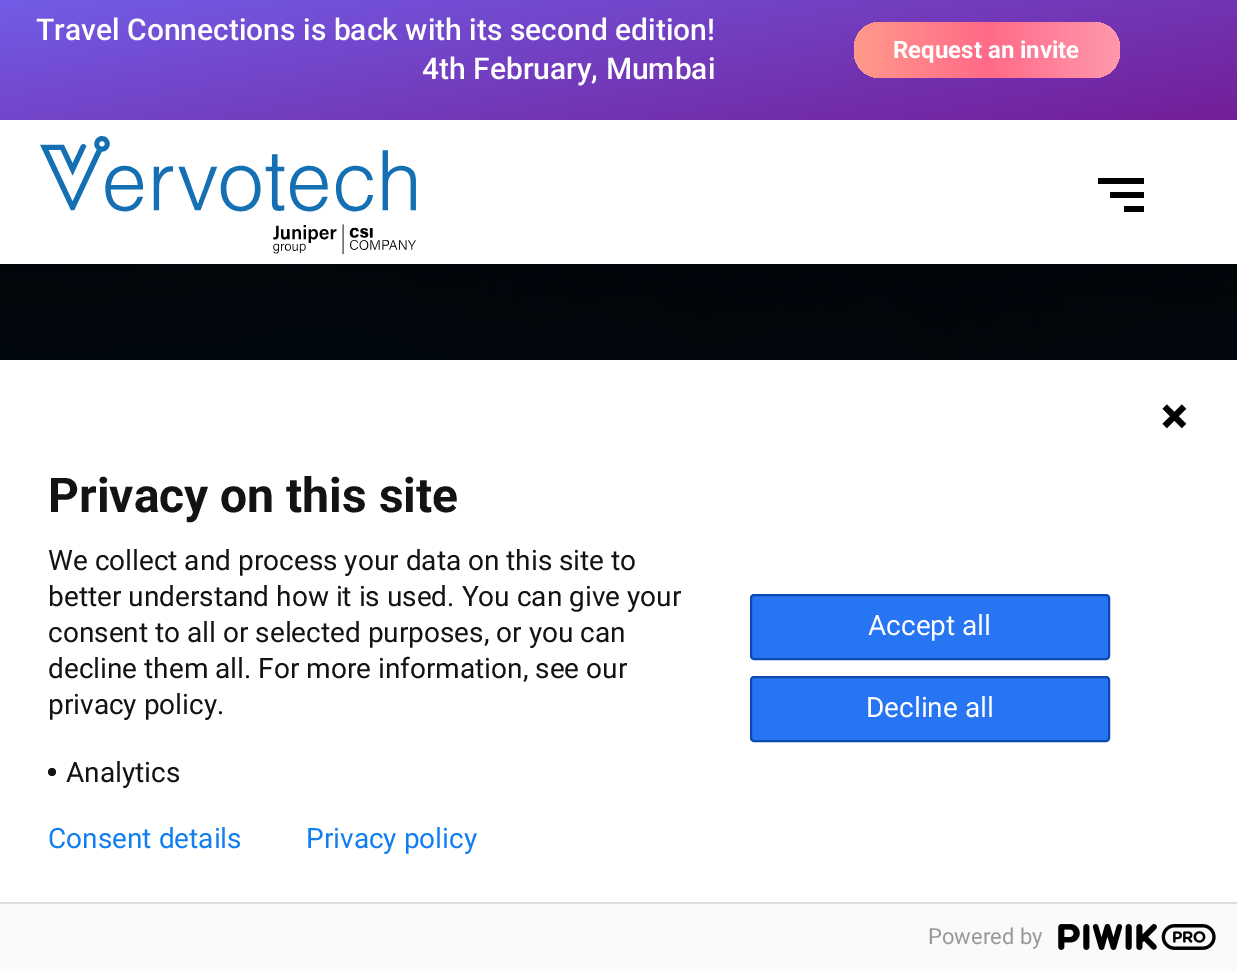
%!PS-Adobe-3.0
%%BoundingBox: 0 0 1237 971
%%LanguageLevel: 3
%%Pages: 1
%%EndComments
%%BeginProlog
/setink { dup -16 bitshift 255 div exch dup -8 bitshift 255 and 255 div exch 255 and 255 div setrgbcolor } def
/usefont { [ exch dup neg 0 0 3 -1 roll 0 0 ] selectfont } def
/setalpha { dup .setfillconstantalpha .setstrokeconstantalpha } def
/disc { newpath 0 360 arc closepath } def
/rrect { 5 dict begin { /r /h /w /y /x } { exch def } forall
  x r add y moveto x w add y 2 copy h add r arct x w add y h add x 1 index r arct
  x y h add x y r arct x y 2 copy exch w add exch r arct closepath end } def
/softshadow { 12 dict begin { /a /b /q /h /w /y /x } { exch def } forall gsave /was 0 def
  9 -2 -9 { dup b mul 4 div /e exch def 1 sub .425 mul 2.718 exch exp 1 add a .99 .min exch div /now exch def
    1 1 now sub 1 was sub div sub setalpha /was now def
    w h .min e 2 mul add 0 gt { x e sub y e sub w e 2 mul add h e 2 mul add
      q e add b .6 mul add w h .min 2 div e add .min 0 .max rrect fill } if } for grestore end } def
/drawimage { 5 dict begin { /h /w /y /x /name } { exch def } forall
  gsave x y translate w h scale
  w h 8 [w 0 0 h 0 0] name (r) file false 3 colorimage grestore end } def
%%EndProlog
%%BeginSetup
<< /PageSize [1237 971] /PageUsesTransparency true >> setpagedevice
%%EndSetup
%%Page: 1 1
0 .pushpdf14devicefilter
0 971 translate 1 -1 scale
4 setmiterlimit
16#FFFFFF setink
0 0 1237 971 rectfill
gsave 0 0 moveto 1237 0 lineto 1237 120 lineto 0 120 lineto closepath clip newpath
<< /ShadingType 2 /ColorSpace /DeviceRGB /Coords [590 -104 648 224] /Extend [true true] /Function << /FunctionType 2 /Domain [0 1] /C0 [0.447 0.361 0.902] /C1 [0.451 0.118 0.592] /N 1 >> >> shfill grestore
/Roboto-Medium 30 usefont
36 40 moveto (Travel Connections is back with its second edition!) show
422 79 moveto (4th February, Mumbai) show
gsave 854 22 266 56 26 rrect clip newpath
<< /ShadingType 2 /ColorSpace /DeviceRGB /Coords [854 50 1120 50] /Extend [true true] /Function << /FunctionType 3 /Domain [0 1] /Functions [<< /FunctionType 2 /Domain [0 1] /C0 [1 0.604 0.545] /C1 [1 0.416 0.533] /N 1 >> << /FunctionType 2 /Domain [0 1] /C0 [1 0.416 0.533] /C1 [1 0.6 0.675] /N 1 >>] /Bounds [0.5] /Encode [0 1 0 1] >> >> shfill grestore
/Roboto-Bold 24 usefont
893 58 moveto (Request an invite) show
(img1.raw) 40 136 376 118 drawimage
[
    [1098 178 46 6 16#000000]
    [1110 192 34 6 16#000000]
    [1124 206 20 6 16#000000]
] { aload pop setink rectfill } forall
(img2.raw) 0 264 1237 96 drawimage
-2 354 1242 616 0 5 0.14 softshadow
16#FFFFFF setink
0 360 1237 542 rectfill
(img3.raw) 1162 404 25 25 drawimage
/Roboto-Bold 48 usefont
16#131313 setink
48 512 moveto (Privacy on this site) show
/Roboto-Regular 28 usefont
[
    [(We collect and process your data on this site to) 48 570]
    [(better understand how it is used. You can give your) 48 606]
    [(consent to all or selected purposes, or you can) 48 642]
    [(decline them all. For more information, see our) 48 678]
    [(privacy policy.) 48 714]
] { aload pop moveto show } forall
52 772 4 disc fill
66 782 moveto (Analytics) show
16#2775F2 setink
751 595 358 64 3 rrect gsave fill grestore
16#0B4BB3 setink
2 setlinewidth
stroke
16#FFFFFF setink
868 635 moveto (Accept all) show
16#2775F2 setink
751 677 358 64 3 rrect gsave fill grestore
16#0B4BB3 setink
stroke
16#FFFFFF setink
866 717 moveto (Decline all) show
16#107EF1 setink
48 848 moveto (Consent details) show
306 848 moveto (Privacy policy) show
16#FAFAFA setink
0 904 1237 67 rectfill
16#DDDDDD setink
0 902 1237 2 rectfill
/Roboto-Regular 22 usefont
16#999999 setink
928 944 moveto (Powered by) show
(img4.raw) 1058 924 158 26 drawimage
.poppdf14devicefilter showpage
%%EOF
